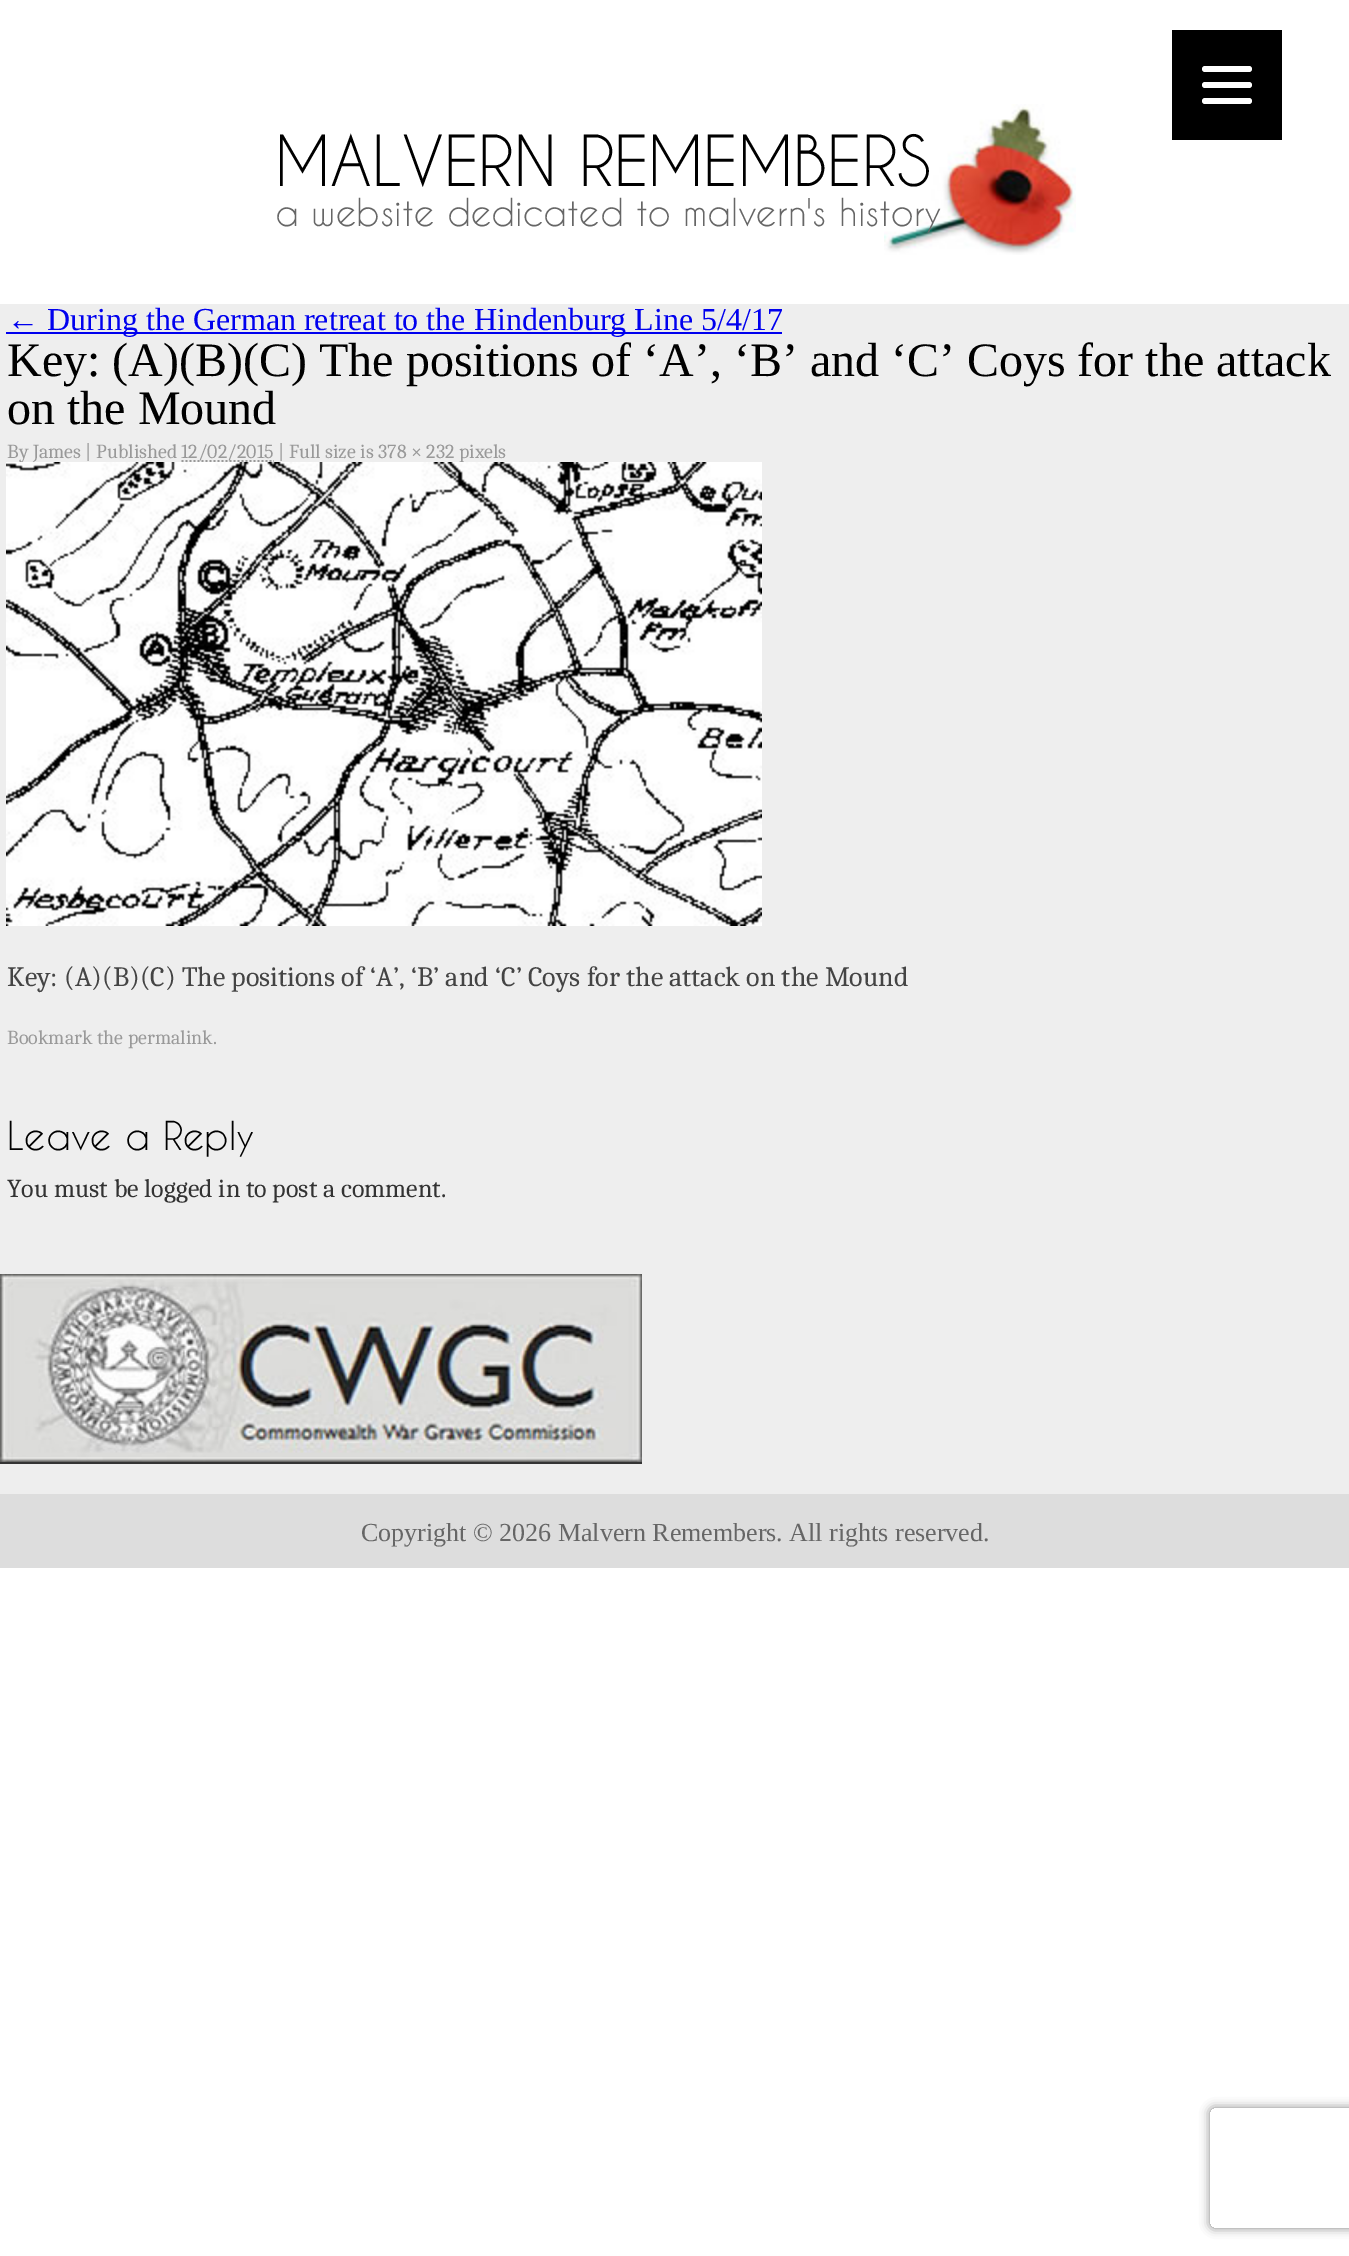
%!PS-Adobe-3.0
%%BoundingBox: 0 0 1349 2256
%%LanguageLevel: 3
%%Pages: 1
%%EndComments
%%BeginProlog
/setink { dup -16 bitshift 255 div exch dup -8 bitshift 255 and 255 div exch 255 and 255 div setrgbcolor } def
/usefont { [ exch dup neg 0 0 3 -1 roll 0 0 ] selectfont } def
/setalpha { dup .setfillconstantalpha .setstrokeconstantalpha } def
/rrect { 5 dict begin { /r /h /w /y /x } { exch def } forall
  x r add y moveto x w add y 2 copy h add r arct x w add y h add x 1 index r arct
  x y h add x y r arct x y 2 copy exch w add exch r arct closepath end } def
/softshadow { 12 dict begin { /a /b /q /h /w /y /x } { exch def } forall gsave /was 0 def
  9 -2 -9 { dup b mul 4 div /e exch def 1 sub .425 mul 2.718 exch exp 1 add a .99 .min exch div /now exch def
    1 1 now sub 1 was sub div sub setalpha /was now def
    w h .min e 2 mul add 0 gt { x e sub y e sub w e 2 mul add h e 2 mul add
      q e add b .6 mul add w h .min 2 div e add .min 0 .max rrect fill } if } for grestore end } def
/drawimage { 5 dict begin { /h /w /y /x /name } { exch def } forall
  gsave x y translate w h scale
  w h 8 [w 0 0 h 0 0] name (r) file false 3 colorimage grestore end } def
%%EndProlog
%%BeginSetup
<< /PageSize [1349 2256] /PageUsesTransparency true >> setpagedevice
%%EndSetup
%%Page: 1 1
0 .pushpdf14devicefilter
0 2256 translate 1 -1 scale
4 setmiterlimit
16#FFFFFF setink
0 0 1349 2256 rectfill
16#000000 setink
1172 30 110 110 rectfill
16#FFFFFF setink
1202 82 50 6 3 rrect fill
1202 66 50 6 3 rrect fill
1202 98 50 6 3 rrect fill
(img1.raw) 884 104 192 151 drawimage
/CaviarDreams-Regular 66 usefont
16#000000 setink
275 186 moveto (MALVERN REMEMBERS) show
/CaviarDreams-Regular 36 usefont
16#666666 setink
275 226 moveto (a website dedicated to malvern's history) show
16#EEEEEE setink
0 304 1349 1190 rectfill
16#0000EE setink
6 332 776 2 rectfill
/LiberationSerif-Regular 32 usefont
7 330 moveto (← During the German retreat to the Hindenburg Line 5/4/17) show
/LiberationSerif-Regular 48 usefont
16#000000 setink
7 376 moveto (Key: \(A\)\(B\)\(C\) The positions of ‘A’, ‘B’ and ‘C’ Coys for the attack) show
7 424 moveto (on the Mound) show
/Caladea-Regular 20 usefont
16#999999 setink
7 458 moveto (By James | Published) show
2 setlinewidth
[2 2] 0 setdash
181.5 461 moveto 274 461 lineto stroke
181 458 moveto (12/02/2015 | Full size is 378 × 232 pixels) show
(img2.raw) 6 462 756 464 drawimage
/Caladea-Regular 28 usefont
16#444444 setink
7 986 moveto (Key: \(A\)\(B\)\(C\) The positions of ‘A’, ‘B’ and ‘C’ Coys for the attack on the Mound) show
/Caladea-Regular 20 usefont
16#999999 setink
7 1044 moveto (Bookmark the permalink.) show
/CaviarDreams-Regular 37.5 usefont
16#000000 setink
7 1150 moveto (Leave a Reply) show
/Caladea-Regular 26 usefont
16#333333 setink
7 1197 moveto (You must be logged in to post a comment.) show
(img3.raw) 0 1274 642 188 drawimage
0 1462 642 2 rectfill
16#DDDDDD setink
0 1494 1349 74 rectfill
/LiberationSerif-Regular 26 usefont
16#666666 setink
361 1541 moveto (Copyright © 2026 Malvern Remembers. All rights reserved.) show
gsave
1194 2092 moveto 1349 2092 lineto 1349 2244 lineto 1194 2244 lineto closepath 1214 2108 moveto 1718 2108 lineto 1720 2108 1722 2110 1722 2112 curveto 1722 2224 lineto 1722 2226 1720 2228 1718 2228 curveto 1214 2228 lineto 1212 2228 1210 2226 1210 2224 curveto 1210 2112 lineto 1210 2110 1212 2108 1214 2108 curveto closepath eoclip newpath
16#808080 setink
1210 2108 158 120 4 5 1 softshadow
grestore
.poppdf14devicefilter showpage
%%EOF
